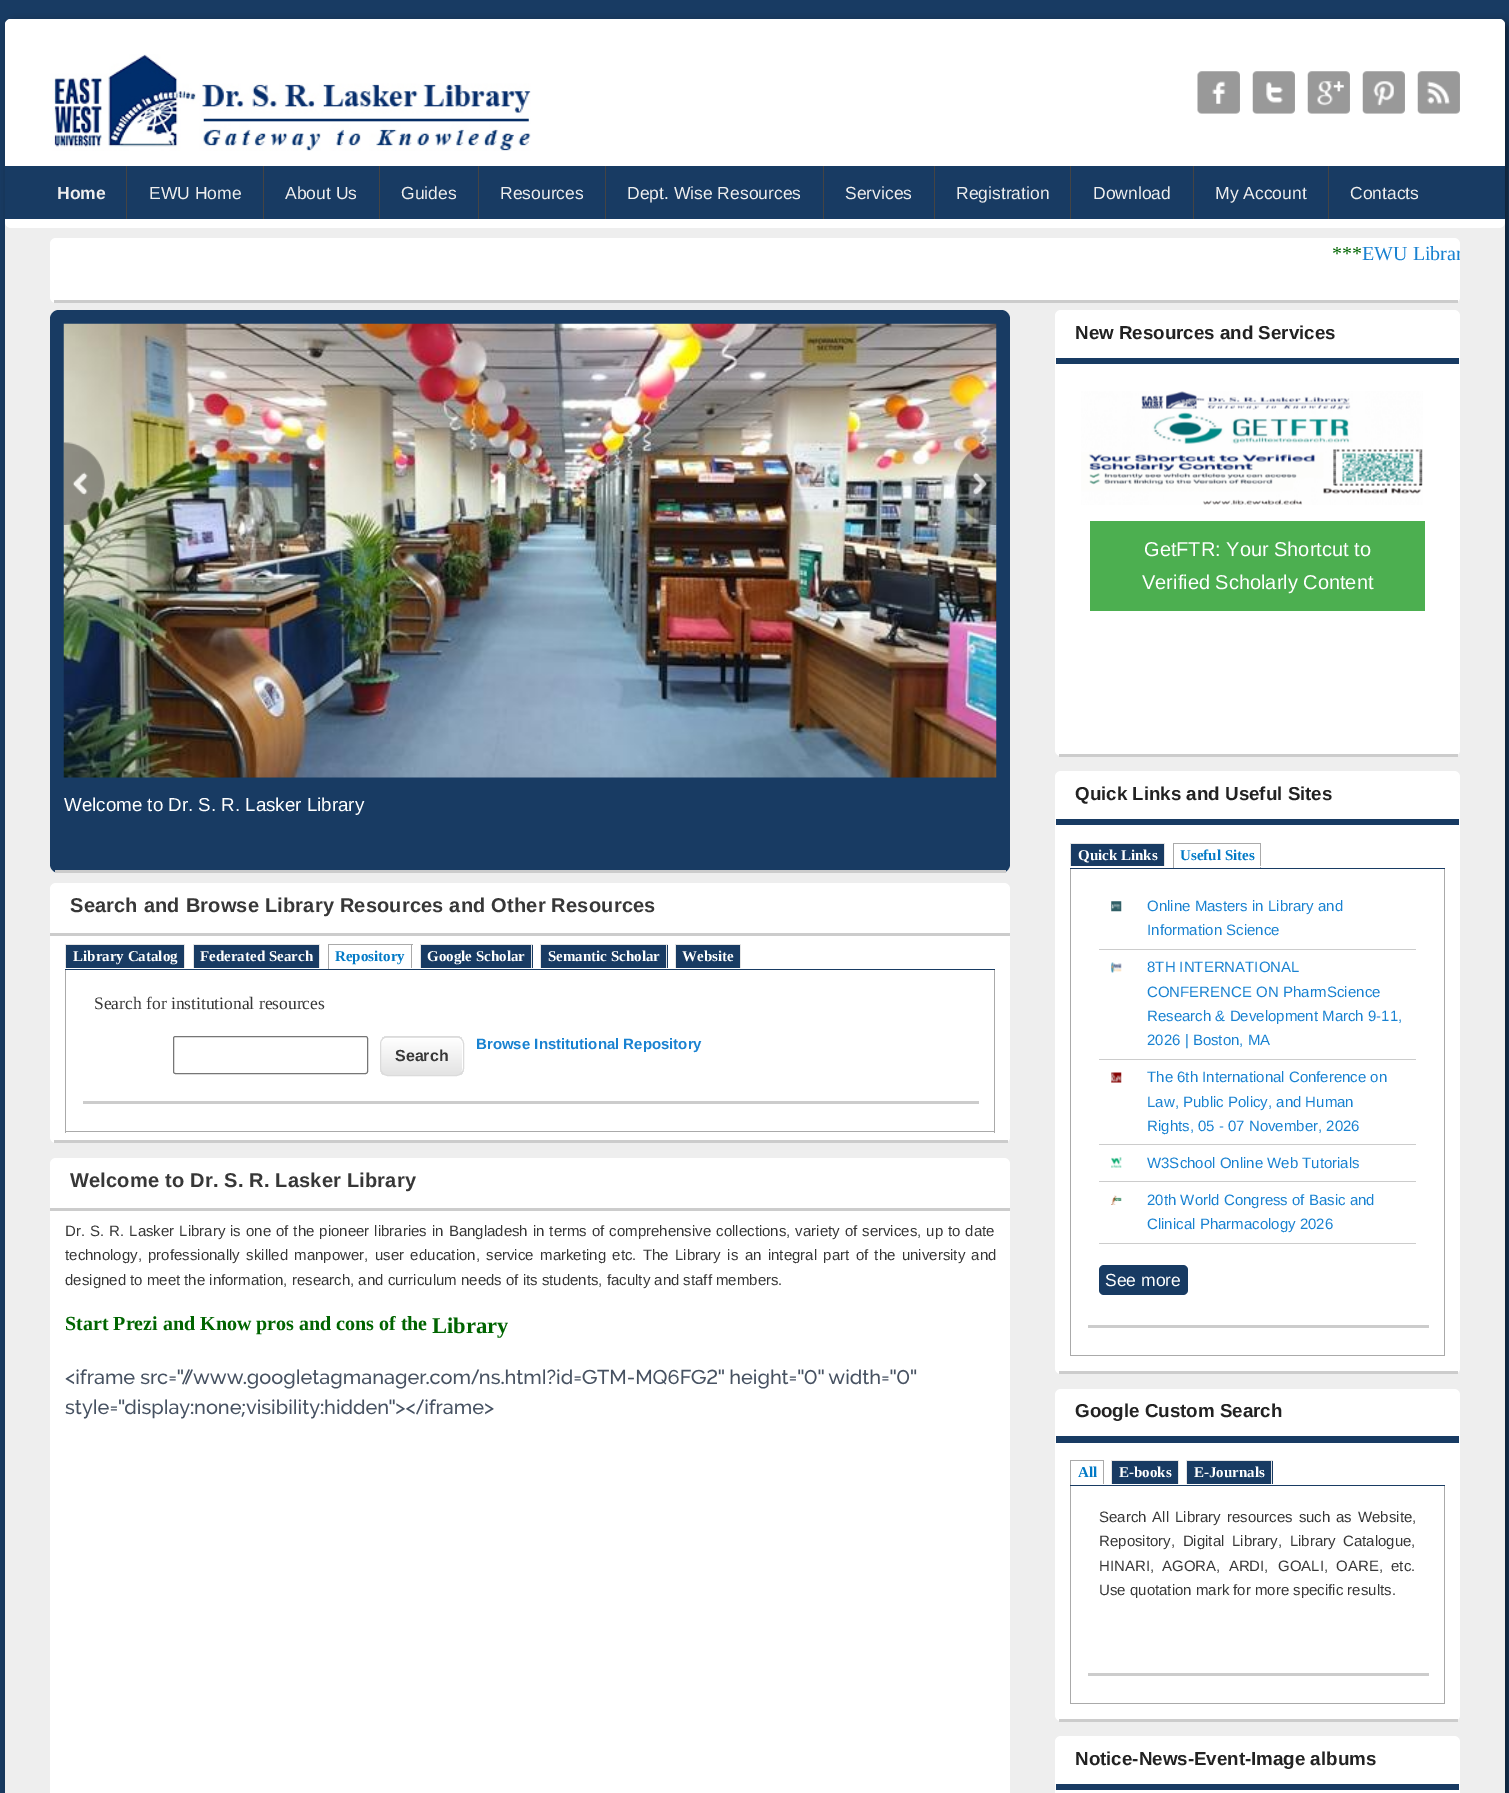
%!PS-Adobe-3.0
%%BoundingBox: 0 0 1509 1793
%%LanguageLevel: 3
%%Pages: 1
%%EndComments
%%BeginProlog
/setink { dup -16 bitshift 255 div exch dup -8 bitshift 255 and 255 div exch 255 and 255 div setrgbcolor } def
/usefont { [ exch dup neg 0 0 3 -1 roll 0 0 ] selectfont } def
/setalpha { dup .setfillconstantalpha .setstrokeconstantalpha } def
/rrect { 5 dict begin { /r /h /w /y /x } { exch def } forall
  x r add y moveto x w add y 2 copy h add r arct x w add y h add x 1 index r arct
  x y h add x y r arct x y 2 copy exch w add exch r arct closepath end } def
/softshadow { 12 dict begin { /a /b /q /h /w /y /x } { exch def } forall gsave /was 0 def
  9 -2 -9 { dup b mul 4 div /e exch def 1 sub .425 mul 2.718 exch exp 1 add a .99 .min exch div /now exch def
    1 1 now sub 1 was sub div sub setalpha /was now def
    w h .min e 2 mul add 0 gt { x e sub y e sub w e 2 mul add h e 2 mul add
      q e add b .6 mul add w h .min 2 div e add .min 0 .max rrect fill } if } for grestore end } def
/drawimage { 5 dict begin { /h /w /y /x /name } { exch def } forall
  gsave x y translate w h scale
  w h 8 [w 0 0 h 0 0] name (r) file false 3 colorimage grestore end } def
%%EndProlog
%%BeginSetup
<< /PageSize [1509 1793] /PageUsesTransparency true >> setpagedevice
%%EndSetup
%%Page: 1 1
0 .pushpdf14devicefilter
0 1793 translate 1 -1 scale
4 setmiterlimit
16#183B63 setink
0 0 1509 1793 rectfill
16#000000 setink
9 23 1500 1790 6 4.5 0.5 softshadow
16#EEEEEE setink
5 19 1500 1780 6 rrect fill
16#FFFFFF setink
5 19 1500 209 6 rrect fill
(img1.raw) 50 54 481 97 drawimage
(img2.raw) 1197 71 43 43 drawimage
(img3.raw) 1252 71 43 43 drawimage
(img4.raw) 1307 71 43 43 drawimage
(img5.raw) 1362 71 43 43 drawimage
(img6.raw) 1417 71 43 43 drawimage
16#183B63 setink
5 166 1500 53 rectfill
16#444444 setink
126 166 1 53 rectfill
/LiberationSans-Bold 17.5 usefont
16#EEEEEE setink
57 199 moveto (Home) show
16#444444 setink
263 166 1 53 rectfill
/LiberationSans-Regular 17.5 usefont
16#EEEEEE setink
149 199 moveto (EWU Home) show
16#444444 setink
379 166 1 53 rectfill
16#EEEEEE setink
285 199 moveto (About Us) show
16#444444 setink
478 166 1 53 rectfill
16#EEEEEE setink
401 199 moveto (Guides) show
16#444444 setink
605 166 1 53 rectfill
16#EEEEEE setink
500 199 moveto (Resources) show
16#444444 setink
823 166 1 53 rectfill
16#EEEEEE setink
627 199 moveto (Dept. Wise Resources) show
16#444444 setink
934 166 1 53 rectfill
16#EEEEEE setink
845 199 moveto (Services) show
16#444444 setink
1070 166 1 53 rectfill
16#EEEEEE setink
956 199 moveto (Registration) show
16#444444 setink
1193 166 1 53 rectfill
16#EEEEEE setink
1093 199 moveto (Download) show
16#444444 setink
1328 166 1 53 rectfill
16#EEEEEE setink
1215 199 moveto (My Account) show
1350 199 moveto (Contacts) show
16#FFFFFF setink
50 238 1410 65 6 rrect fill
16#CCCCCC setink
54 300 1404 3 rectfill
/LiberationSerif-Regular 20 usefont
16#006400 setink
1332 260 moveto (***) show
gsave
50 238 1410 32 rectclip
16#1982D1 setink
1362 260 moveto (EWU Librar) show
grestore
16#183B63 setink
50 310 960 563 9 rrect fill
16#CCCCCC setink
55 870 951 3 rectfill
(img9.raw) 63 323 934 455 drawimage
(img7.raw) 63 442 42 83 drawimage
(img8.raw) 955 442 42 83 drawimage
/LiberationSans-Regular 18.75 usefont
16#FFFFFF setink
64 811 moveto (Welcome to Dr. S. R. Lasker Library) show
50 883 960 260 6 rrect fill
16#CCCCCC setink
54 1140 954 3 rectfill
50 933 960 3 rectfill
/LiberationSans-Bold 20 usefont
16#373737 setink
70 912 moveto 0.2 0 (Search and Browse Library Resources and Other Resources) ashow
16#183B63 setink
65 969 930 1 rectfill
66 945 118 23 rectfill
/LiberationSerif-Bold 15 usefont
16#FFFFFF setink
73 961 moveto (Library Catalog) show
[
    [65 944 120 1 16#E5E5E5]
    [184 944 1 24 16#E5E5E5]
    [65 944 1 24 16#E5E5E5]
    [194 945 125 23 16#183B63]
] { aload pop setink rectfill } forall
16#FFFFFF setink
200 961 moveto (Federated Search) show
[
    [193 944 127 1 16#E5E5E5]
    [319 944 1 24 16#E5E5E5]
    [193 944 1 24 16#E5E5E5]
] { aload pop setink rectfill } forall
16#027AC6 setink
335 961 moveto (Repository) show
[
    [328 944 85 1 16#AAAAAA]
    [411 944 1 25 16#AAAAAA]
    [411 968 2 1 16#FFFFFF]
    [328 944 1 25 16#AAAAAA]
    [421 945 112 23 16#183B63]
] { aload pop setink rectfill } forall
16#FFFFFF setink
427 961 moveto (Google Scholar) show
[
    [420 944 113 1 16#E5E5E5]
    [531 944 1 24 16#E5E5E5]
    [420 944 1 24 16#E5E5E5]
    [541 945 127 23 16#183B63]
] { aload pop setink rectfill } forall
16#FFFFFF setink
548 961 moveto (Semantic Scholar) show
[
    [540 944 128 1 16#E5E5E5]
    [666 944 1 24 16#E5E5E5]
    [540 944 1 24 16#E5E5E5]
    [676 945 64 23 16#183B63]
] { aload pop setink rectfill } forall
16#FFFFFF setink
682 961 moveto (Website) show
[
    [675 944 66 1 16#E5E5E5]
    [740 944 1 24 16#E5E5E5]
    [675 944 1 24 16#E5E5E5]
    [994 970 1 163 16#AAAAAA]
    [65 1131 930 1 16#AAAAAA]
    [65 970 1 163 16#AAAAAA]
    [83 1101 896 3 16#CCCCCC]
] { aload pop setink rectfill } forall
/LiberationSerif-Regular 17.5 usefont
16#373737 setink
94 1009 moveto (Search for institutional resources) show
16#767676 setink
173.5 1036.5 194 37 2 rrect stroke
/LiberationSans-Bold 15 usefont
16#1982D1 setink
476 1049 moveto (Browse Institutional Repository) show
gsave
380 1036 84 40 8 rrect clip newpath
gsave 380 1036 moveto 464 1036 lineto 464 1038 lineto 380 1038 lineto closepath clip newpath
<< /ShadingType 2 /ColorSpace /DeviceRGB /Coords [422 1000 422 1038] /Extend [true true] /Function << /FunctionType 2 /Domain [0 1] /C0 [1 1 1] /C1 [0.89 0.89 0.89] /N 1 >> >> shfill grestore
gsave 380 1038 moveto 464 1038 lineto 464 1075 lineto 380 1075 lineto closepath clip newpath
<< /ShadingType 2 /ColorSpace /DeviceRGB /Coords [422 1038 422 1075] /Extend [true true] /Function << /FunctionType 2 /Domain [0 1] /C0 [1 1 1] /C1 [0.89 0.89 0.89] /N 1 >> >> shfill grestore
grestore
16#FFFFFF setink
388 1039 moveto 456 1039 lineto 460 1039 462 1042 462 1045 curveto 462 1070 lineto 462 1071 462 1072 461 1073 curveto 462 1072 463 1071 463 1069 curveto 463 1044 lineto 463 1041 460 1038 457 1038 curveto 387 1038 lineto 384 1038 381 1041 381 1044 curveto 381 1045 lineto 381 1042 384 1039 388 1039 curveto closepath fill
16#DBDBDB setink
380.5 1036.5 83 39 7.5 rrect stroke
/LiberationSans-Bold 16 usefont
16#373737 setink
395 1061 moveto (Search) show
16#FFFFFF setink
50 1158 960 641 6 rrect fill
16#CCCCCC setink
50 1208 960 3 rectfill
/LiberationSans-Bold 20 usefont
16#373737 setink
70 1187 moveto 0.2 0 (Welcome to Dr. S. R. Lasker Library) ashow
/LiberationSans-Regular 15 usefont
65 1236 moveto 0.85 0 32 (Dr. S. R. Lasker Library is one of the pioneer libraries in Bangladesh in terms of comprehensive collections, variety of services, up to date) widthshow
65 1260 moveto 2.25 0 32 (technology, professionally skilled manpower, user education, service marketing etc. The Library is an integral part of the university and) widthshow
65 1285 moveto (designed to meet the information, research, and curriculum needs of its students, faculty and staff members.) show
/LiberationSerif-Bold 20 usefont
16#006400 setink
65 1330 moveto (Start Prezi and Know pros and cons of the) show
/LiberationSerif-Bold 22.5 usefont
432 1333 moveto (Library) show
(img10.raw) 65 1369 852 50 drawimage
16#FFFFFF setink
1055 310 405 446 6 rrect fill
16#CCCCCC setink
1059 754 399 3 rectfill
16#183B63 setink
1056 358 403 6 rectfill
/LiberationSans-Bold 18.75 usefont
16#222222 setink
1075 339 moveto (New Resources and Services) show
(img11.raw) 1081 391 342 114 drawimage
16#4CAF50 setink
1090 521 335 90 rectfill
/LiberationSans-Regular 20 usefont
16#FFFFFF setink
1144 556 moveto (GetFTR: Your Shortcut to) show
1142 589 moveto (Verified Scholarly Content) show
1055 771 405 603 6 rrect fill
16#CCCCCC setink
1059 1371 399 3 rectfill
16#183B63 setink
1056 819 403 6 rectfill
/LiberationSans-Bold 18.75 usefont
16#222222 setink
1075 800 moveto (Quick Links and Useful Sites) show
16#183B63 setink
1070 868 375 1 rectfill
1071 844 93 22 rectfill
/LiberationSerif-Bold 15 usefont
16#FFFFFF setink
1078 860 moveto (Quick Links) show
[
    [1070 843 95 1 16#E5E5E5]
    [1164 843 1 23 16#E5E5E5]
    [1070 843 1 23 16#E5E5E5]
] { aload pop setink rectfill } forall
16#027AC6 setink
1180 860 moveto (Useful Sites) show
[
    [1173 843 88 1 16#AAAAAA]
    [1260 843 1 25 16#AAAAAA]
    [1260 866 1 1 16#FFFFFF]
    [1173 843 1 25 16#AAAAAA]
    [1444 869 1 487 16#AAAAAA]
    [1070 1355 375 1 16#AAAAAA]
    [1070 869 1 487 16#AAAAAA]
    [1088 1325 341 3 16#CCCCCC]
    [1099 949 317 1 16#CCCCCC]
] { aload pop setink rectfill } forall
(img12.raw) 1111 901 11 11 drawimage
/LiberationSans-Regular 15 usefont
16#1982D1 setink
1147 911 moveto (Online Masters in Library and) show
1147 935 moveto (Information Science) show
16#CCCCCC setink
1099 1059 317 1 rectfill
(img13.raw) 1111 962 11 11 drawimage
16#1982D1 setink
[
    [(8TH INTERNATIONAL) 1147 972]
    [(CONFERENCE ON PharmScience) 1147 997]
    [(Research & Development March 9-11,) 1147 1021]
    [(2026 | Boston, MA) 1147 1045]
] { aload pop moveto show } forall
16#CCCCCC setink
1099 1144 317 1 rectfill
(img14.raw) 1111 1072 11 11 drawimage
16#1982D1 setink
[
    [(The 6th International Conference on) 1147 1082]
    [(Law, Public Policy, and Human) 1147 1107]
    [(Rights, 05 - 07 November, 2026) 1147 1131]
] { aload pop moveto show } forall
16#CCCCCC setink
1099 1181 317 1 rectfill
(img15.raw) 1111 1157 11 11 drawimage
16#1982D1 setink
1147 1168 moveto (W3School Online Web Tutorials) show
16#CCCCCC setink
1099 1243 317 1 rectfill
(img16.raw) 1111 1195 11 10 drawimage
16#1982D1 setink
1147 1205 moveto (20th World Congress of Basic and) show
1147 1229 moveto (Clinical Pharmacology 2026) show
16#183B63 setink
1099 1265 89 30 5 rrect fill
/LiberationSans-Regular 17.5 usefont
16#FFFFFF setink
1105 1286 moveto (See more) show
1055 1389 405 332 6 rrect fill
16#CCCCCC setink
1059 1719 399 3 rectfill
16#183B63 setink
1056 1436 403 7 rectfill
/LiberationSans-Bold 18.75 usefont
16#222222 setink
1075 1417 moveto (Google Custom Search) show
16#183B63 setink
1070 1485 375 1 rectfill
/LiberationSerif-Bold 15 usefont
16#027AC6 setink
1078 1477 moveto (All) show
[
    [1070 1460 34 1 16#AAAAAA]
    [1103 1460 1 25 16#AAAAAA]
    [1103 1484 1 1 16#FFFFFF]
    [1070 1460 1 25 16#AAAAAA]
    [1112 1461 66 23 16#183B63]
] { aload pop setink rectfill } forall
16#FFFFFF setink
1119 1477 moveto (E-books) show
[
    [1111 1460 68 1 16#E5E5E5]
    [1178 1460 1 24 16#E5E5E5]
    [1111 1460 1 24 16#E5E5E5]
    [1187 1461 86 23 16#183B63]
] { aload pop setink rectfill } forall
16#FFFFFF setink
1194 1477 moveto (E-Journals) show
[
    [1186 1460 87 1 16#E5E5E5]
    [1271 1460 1 24 16#E5E5E5]
    [1186 1460 1 24 16#E5E5E5]
    [1444 1486 1 218 16#AAAAAA]
    [1070 1703 375 1 16#AAAAAA]
    [1070 1486 1 218 16#AAAAAA]
    [1088 1673 341 3 16#CCCCCC]
] { aload pop setink rectfill } forall
/LiberationSans-Regular 15 usefont
16#373737 setink
1099 1522 moveto 1.75 0 32 (Search All Library resources such as Website,) widthshow
1099 1546 moveto 3.5 0 32 (Repository, Digital Library, Library Catalogue,) widthshow
1099 1571 moveto 4 0 32 (HINARI, AGORA, ARDI,) widthshow
1278 1571 moveto 4 0 32 (GOALI, OARE, etc.) widthshow
1099 1595 moveto (Use quotation mark for more specific results.) show
16#FFFFFF setink
1055 1736 405 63 6 rrect fill
16#183B63 setink
1056 1784 403 6 rectfill
/LiberationSans-Bold 18.75 usefont
16#222222 setink
1075 1765 moveto (Notice-News-Event-Image albums) show
.poppdf14devicefilter showpage
%%EOF
